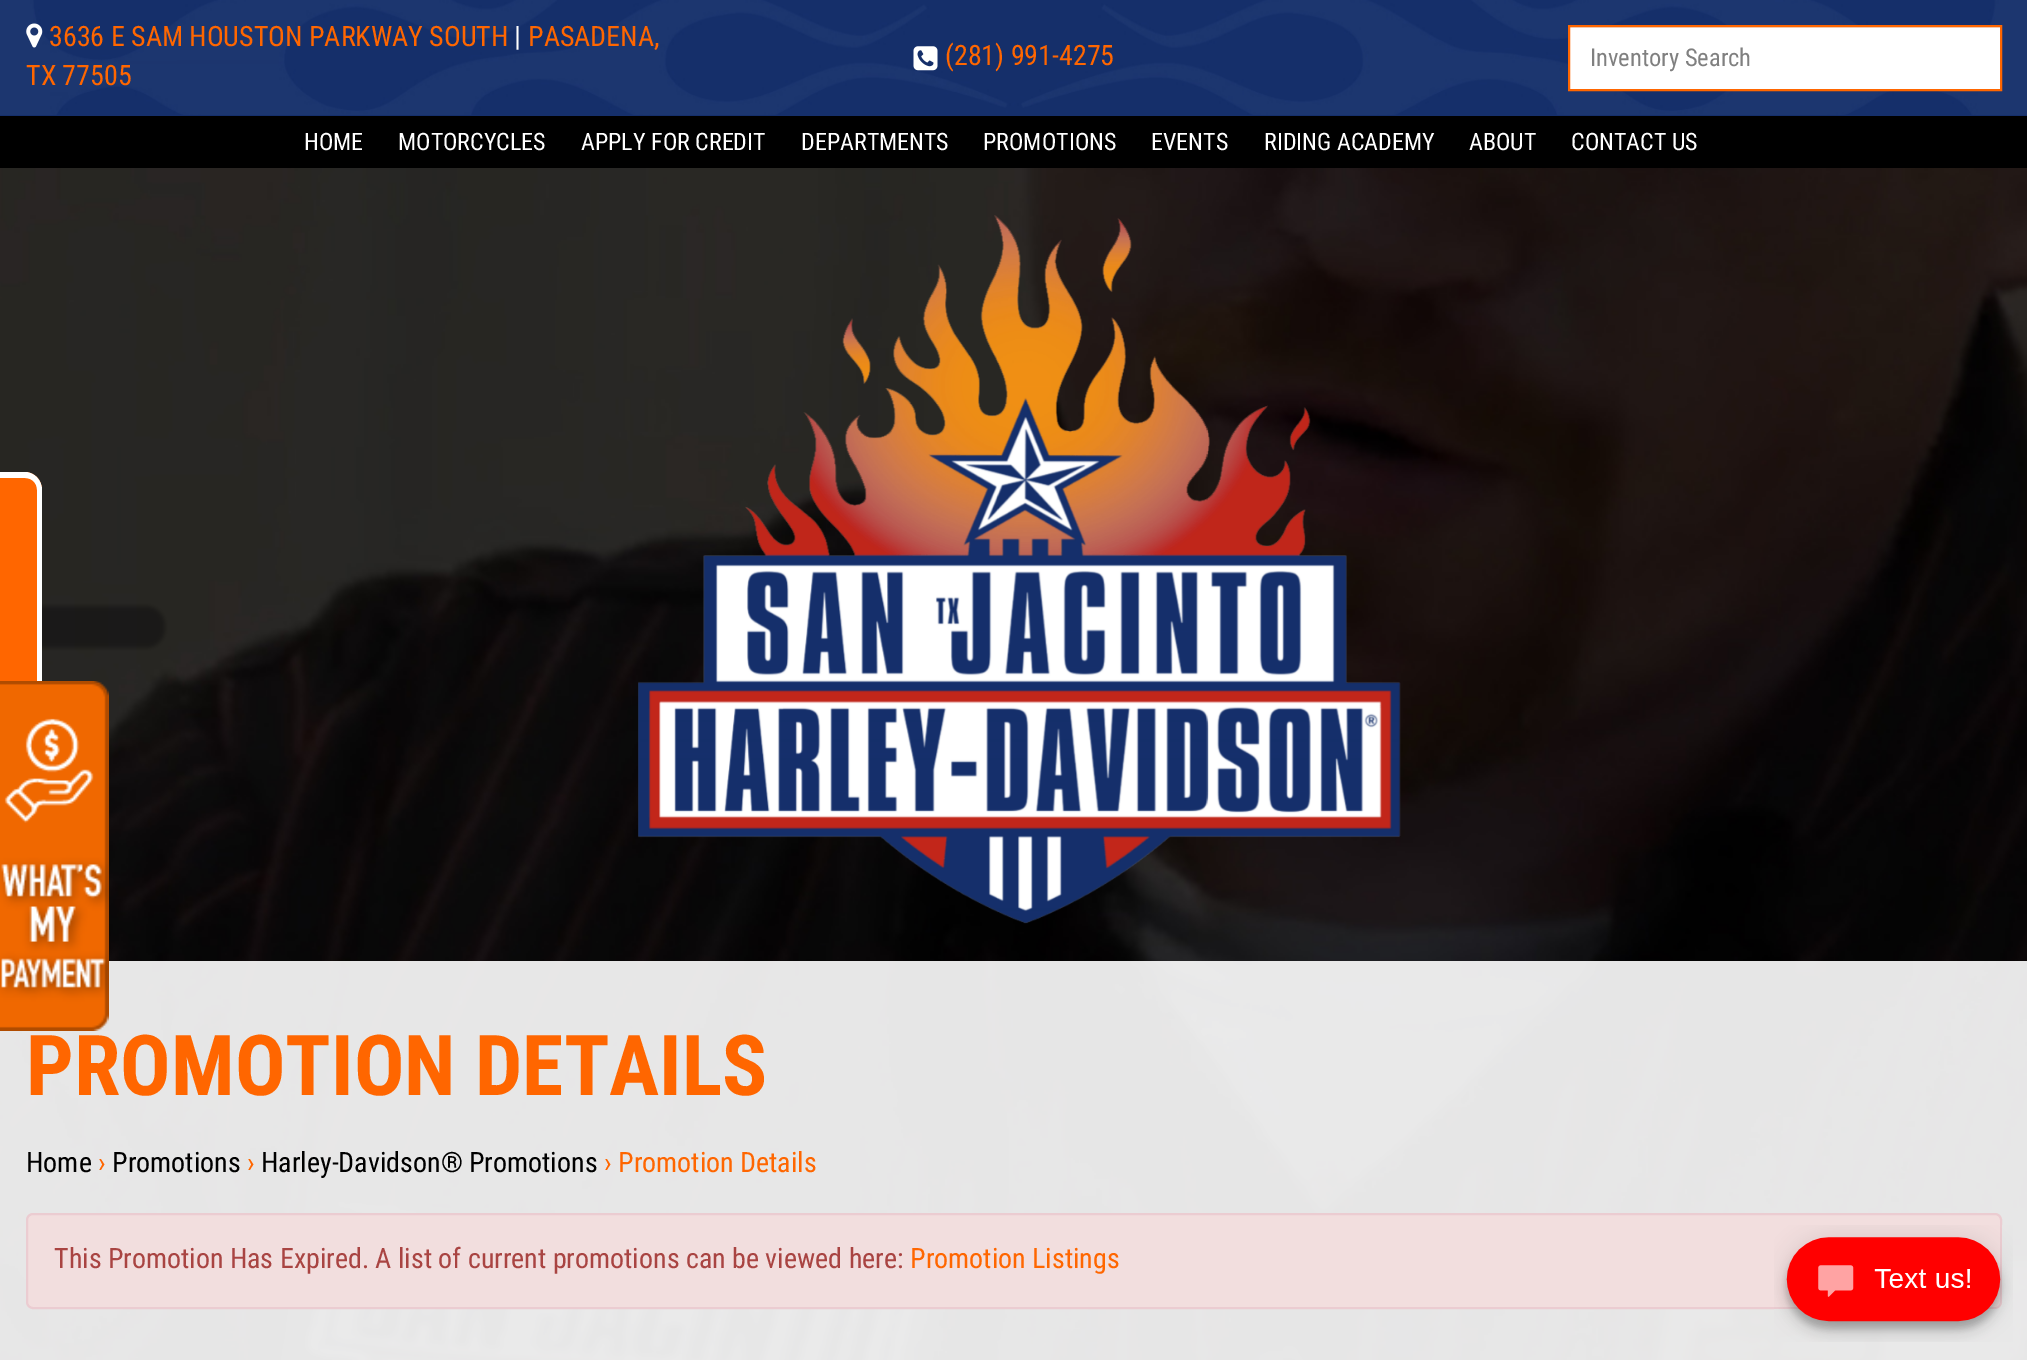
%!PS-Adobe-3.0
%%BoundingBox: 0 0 2027 1360
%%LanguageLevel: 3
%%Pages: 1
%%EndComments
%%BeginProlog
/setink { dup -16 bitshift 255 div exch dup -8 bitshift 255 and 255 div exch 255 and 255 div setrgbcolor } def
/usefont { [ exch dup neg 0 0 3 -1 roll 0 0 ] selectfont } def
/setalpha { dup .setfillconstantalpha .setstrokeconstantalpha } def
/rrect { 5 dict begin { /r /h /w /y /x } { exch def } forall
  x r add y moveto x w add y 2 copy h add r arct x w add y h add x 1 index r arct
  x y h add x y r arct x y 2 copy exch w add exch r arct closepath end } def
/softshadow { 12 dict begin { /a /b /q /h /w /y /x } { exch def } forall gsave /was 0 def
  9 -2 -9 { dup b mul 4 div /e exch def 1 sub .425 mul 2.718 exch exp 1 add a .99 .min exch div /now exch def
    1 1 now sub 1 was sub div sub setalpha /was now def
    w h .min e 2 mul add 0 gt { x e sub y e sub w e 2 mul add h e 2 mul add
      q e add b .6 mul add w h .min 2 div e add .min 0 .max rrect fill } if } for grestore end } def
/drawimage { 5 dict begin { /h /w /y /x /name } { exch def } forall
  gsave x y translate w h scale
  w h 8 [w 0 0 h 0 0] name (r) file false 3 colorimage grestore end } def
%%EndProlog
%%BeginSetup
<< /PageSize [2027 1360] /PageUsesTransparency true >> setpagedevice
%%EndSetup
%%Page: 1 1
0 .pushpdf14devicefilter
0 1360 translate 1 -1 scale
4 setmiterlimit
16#FFFFFF setink
0 0 2027 1360 rectfill
(img1.raw) 0 168 2027 1192 drawimage
16#152F6B setink
0 115 2027 1 rectfill
(img2.raw) 0 0 2027 115 drawimage
(img3.raw) 26 23 17 25 drawimage
/RobotoCondensed-Regular 28 usefont
16#FF6600 setink
49 46 moveto (3636 E SAM HOUSTON PARKWAY SOUTH) show
16#FFFFFF setink
514 46 moveto (|) show
16#FF6600 setink
528 46 moveto (PASADENA,) show
26 85 moveto (TX 77505) show
(img4.raw) 913 46 25 25 drawimage
945 65 moveto (\(281\) 991-4275) show
16#FFFFFF setink
1570 28 430 61 rectfill
16#ECECEC setink
1570 27 430 1 rectfill
16#FF6600 setink
2 setlinewidth
1569 26 432 64 rectstroke
/RobotoCondensed-Regular 24.5 usefont
16#808080 setink
1590 66 moveto (Inventory Search) show
16#000000 setink
0 116 2027 52 rectfill
/RobotoCondensed-Regular 24 usefont
16#FFFFFF setink
[
    [(HOME) 304 150]
    [(MOTORCYCLES) 398 150]
    [(APPLY FOR CREDIT) 581 150]
    [(DEPARTMENTS) 801 150]
    [(PROMOTIONS) 983 150]
    [(EVENTS) 1151 150]
    [(RIDING ACADEMY) 1264 150]
    [(ABOUT) 1469 150]
    [(CONTACT US) 1571 150]
] { aload pop moveto show } forall
(img5.raw) 638 215 763 709 drawimage
16#000000 setink
-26 606 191 42 18 2.5 0.33 softshadow
16#FF6600 setink
0 770 moveto 0 472 lineto 25 472 lineto 34 472 42 480 42 490 curveto 42 752 lineto 42 762 34 770 25 770 curveto closepath fill
16#FFFFFF setink
0 770 moveto 0 472 lineto 25 472 lineto 34 472 42 480 42 490 curveto 42 752 lineto 42 762 34 770 25 770 curveto closepath 0 765 moveto 0 478 lineto 25 478 lineto 32 478 37 483 37 490 curveto 37 752 lineto 37 759 32 765 25 765 curveto closepath eofill
0.9 setalpha
0 961 2027 399 rectfill
/RobotoCondensed-Bold 84 usefont
1 setalpha
16#FF6600 setink
26 1095 moveto (PROMOTION DETAILS) show
/RobotoCondensed-Regular 28 usefont
16#000000 setink
26 1172 moveto (Home) show
16#FF6600 setink
98 1172 moveto (›) show
16#000000 setink
112 1172 moveto (Promotions) show
16#FF6600 setink
247 1172 moveto (›) show
16#000000 setink
261 1172 moveto (Harley-Davidson® Promotions) show
16#FF6600 setink
604 1172 moveto (› Promotion Details) show
16#F2DEDE setink
27 1214 1974 94 6 rrect gsave fill grestore
16#EBCCD1 setink
stroke
16#A94442 setink
54 1268 moveto (This Promotion Has Expired. A list of current promotions can be viewed here:) show
16#FF6600 setink
910 1268 moveto (Promotion Listings) show
(img6.raw) 0 681 109 350 drawimage
(img7.raw) 1774 1225 239 117 drawimage
.poppdf14devicefilter showpage
%%EOF
